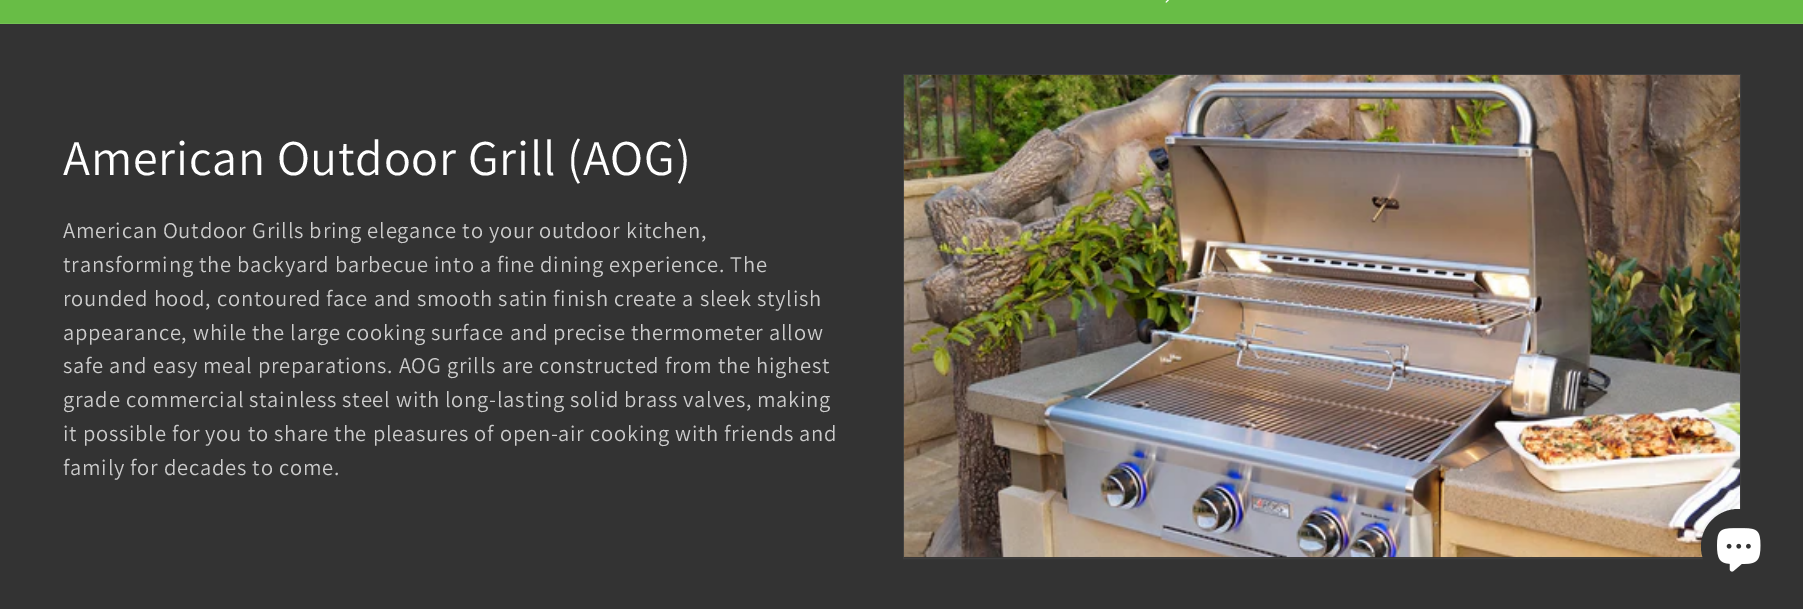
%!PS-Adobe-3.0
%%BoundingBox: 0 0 1803 609
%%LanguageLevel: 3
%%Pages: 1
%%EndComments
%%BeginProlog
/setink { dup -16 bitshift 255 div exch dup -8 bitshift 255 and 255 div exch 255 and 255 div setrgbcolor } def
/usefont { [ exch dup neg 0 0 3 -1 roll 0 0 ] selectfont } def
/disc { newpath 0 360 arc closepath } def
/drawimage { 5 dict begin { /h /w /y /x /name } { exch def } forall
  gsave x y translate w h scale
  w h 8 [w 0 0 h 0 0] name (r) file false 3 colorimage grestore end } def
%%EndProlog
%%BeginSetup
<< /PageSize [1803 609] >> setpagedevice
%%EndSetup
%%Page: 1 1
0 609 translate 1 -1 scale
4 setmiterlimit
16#68BD46 setink
0 0 1803 609 rectfill
16#74C255 setink
0 23 1803 1 rectfill
(img1.raw) 1165 0 4 3 drawimage
16#333333 setink
0 24 1803 585 rectfill
/Assistant-Regular 50 usefont
16#FFFFFF setink
63 175 moveto 0.75 0 (American Outdoor Grill \(AOG\)) ashow
/Assistant-Regular 22.5 usefont
16#CCCCCC setink
63 238 moveto 0.75 0 (American Outdoor Grills bring elegance to your outdoor kitchen,) ashow
63 272 moveto 0.75 0 (transforming the backyard barbecue into a fine dining experience. The) ashow
63 306 moveto 0.75 0 (rounded hood, contoured face and smooth satin finish create a sleek stylish) ashow
63 340 moveto 0.75 0 (appearance, while the large cooking surface and precise thermometer allow) ashow
63 373 moveto 0.75 0 (safe and easy meal preparations. AOG grills are constructed from the highest) ashow
63 407 moveto 0.75 0 (grade commercial stainless steel with long-lasting solid brass valves, making) ashow
63 441 moveto 0.75 0 (it possible for you to share the pleasures of open-air cooking with friends and) ashow
63 475 moveto 0.75 0 (family for decades to come.) ashow
16#3D3D3D setink
903.5 74.5 837 484 rectstroke
(img2.raw) 903 74 837 484 drawimage
16#333333 setink
1738.5 546.5 37.5 disc fill
(img3.raw) 1717 528 44 44 drawimage
showpage
%%EOF
